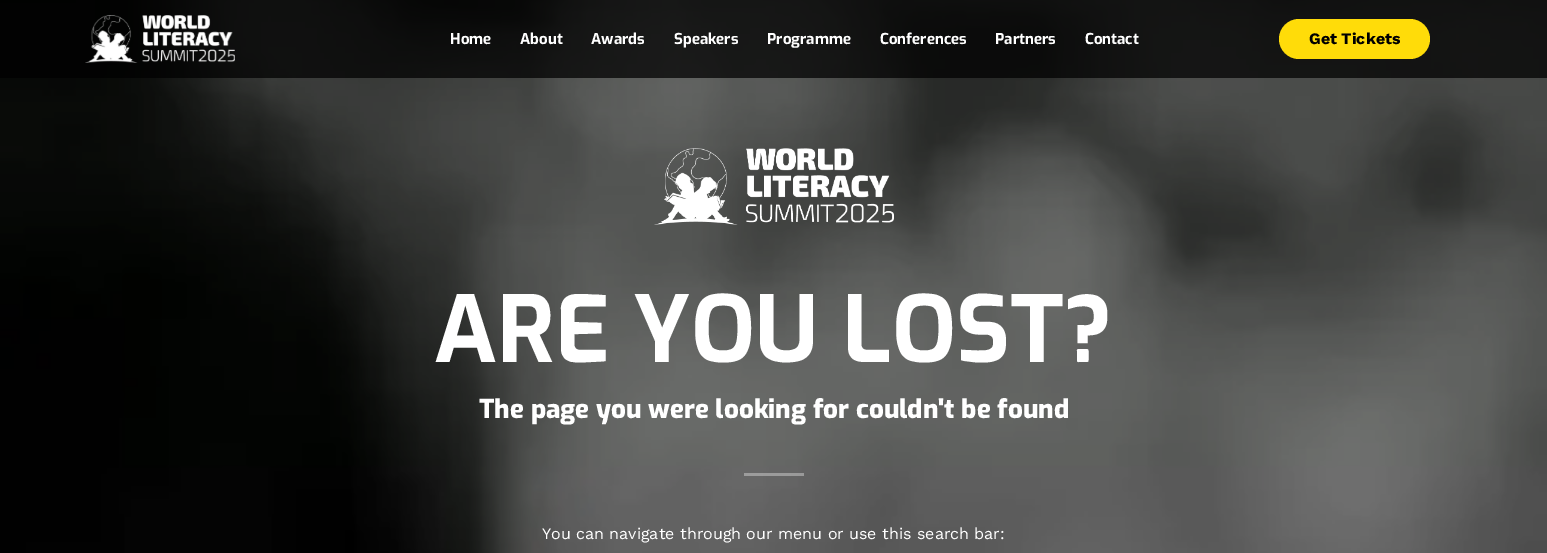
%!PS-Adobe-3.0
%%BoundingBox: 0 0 1547 553
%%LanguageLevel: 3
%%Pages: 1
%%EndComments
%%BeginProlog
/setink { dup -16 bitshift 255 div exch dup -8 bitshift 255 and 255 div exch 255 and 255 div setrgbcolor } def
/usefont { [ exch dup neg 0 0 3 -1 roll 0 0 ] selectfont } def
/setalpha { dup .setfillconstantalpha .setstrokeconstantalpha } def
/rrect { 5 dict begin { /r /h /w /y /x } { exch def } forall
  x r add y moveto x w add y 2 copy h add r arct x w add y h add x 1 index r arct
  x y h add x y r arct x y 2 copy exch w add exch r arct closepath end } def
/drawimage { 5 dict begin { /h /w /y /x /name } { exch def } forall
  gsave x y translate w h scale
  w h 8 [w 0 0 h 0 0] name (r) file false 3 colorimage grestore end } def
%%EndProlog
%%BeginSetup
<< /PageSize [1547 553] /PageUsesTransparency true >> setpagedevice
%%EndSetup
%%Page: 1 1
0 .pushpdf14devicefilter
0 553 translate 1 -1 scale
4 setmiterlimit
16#FFFFFF setink
0 0 1547 553 rectfill
(img2.raw) 0 0 1547 553 drawimage
0.73 setalpha
16#000000 setink
0 0 1547 78 rectfill
1 setalpha
(img1.raw) 85 15 150 48 drawimage
/Exo-Bold 15 usefont
16#FFFFFF setink
[
    [(Home) 450 44]
    [(About) 520 44]
    [(Awards) 591 44]
    [(Speakers) 674 44]
    [(Programme) 767 44]
    [(Conferences) 880 44]
    [(Partners) 995 44]
    [(Contact) 1085 44]
] { aload pop moveto show } forall
16#FFDC09 setink
1279 19 151 40 20 rrect fill
/WorkSans-Bold 16 usefont
16#000000 setink
1309 44 moveto (Get Tickets) show
(img3.raw) 654 148 240 77 drawimage
/Exo-Bold 92 usefont
16#FFFFFF setink
434 362 moveto (ARE YOU LOST?) show
/Exo-ExtraBold 26 usefont
479 418 moveto (The page you were looking for couldn't be found) show
0.35 setalpha
744 473 60 3 rectfill
/WorkSans-Regular 16 usefont
1 setalpha
542 539 moveto (You can navigate through our menu or use this search bar:) show
.poppdf14devicefilter showpage
%%EOF
